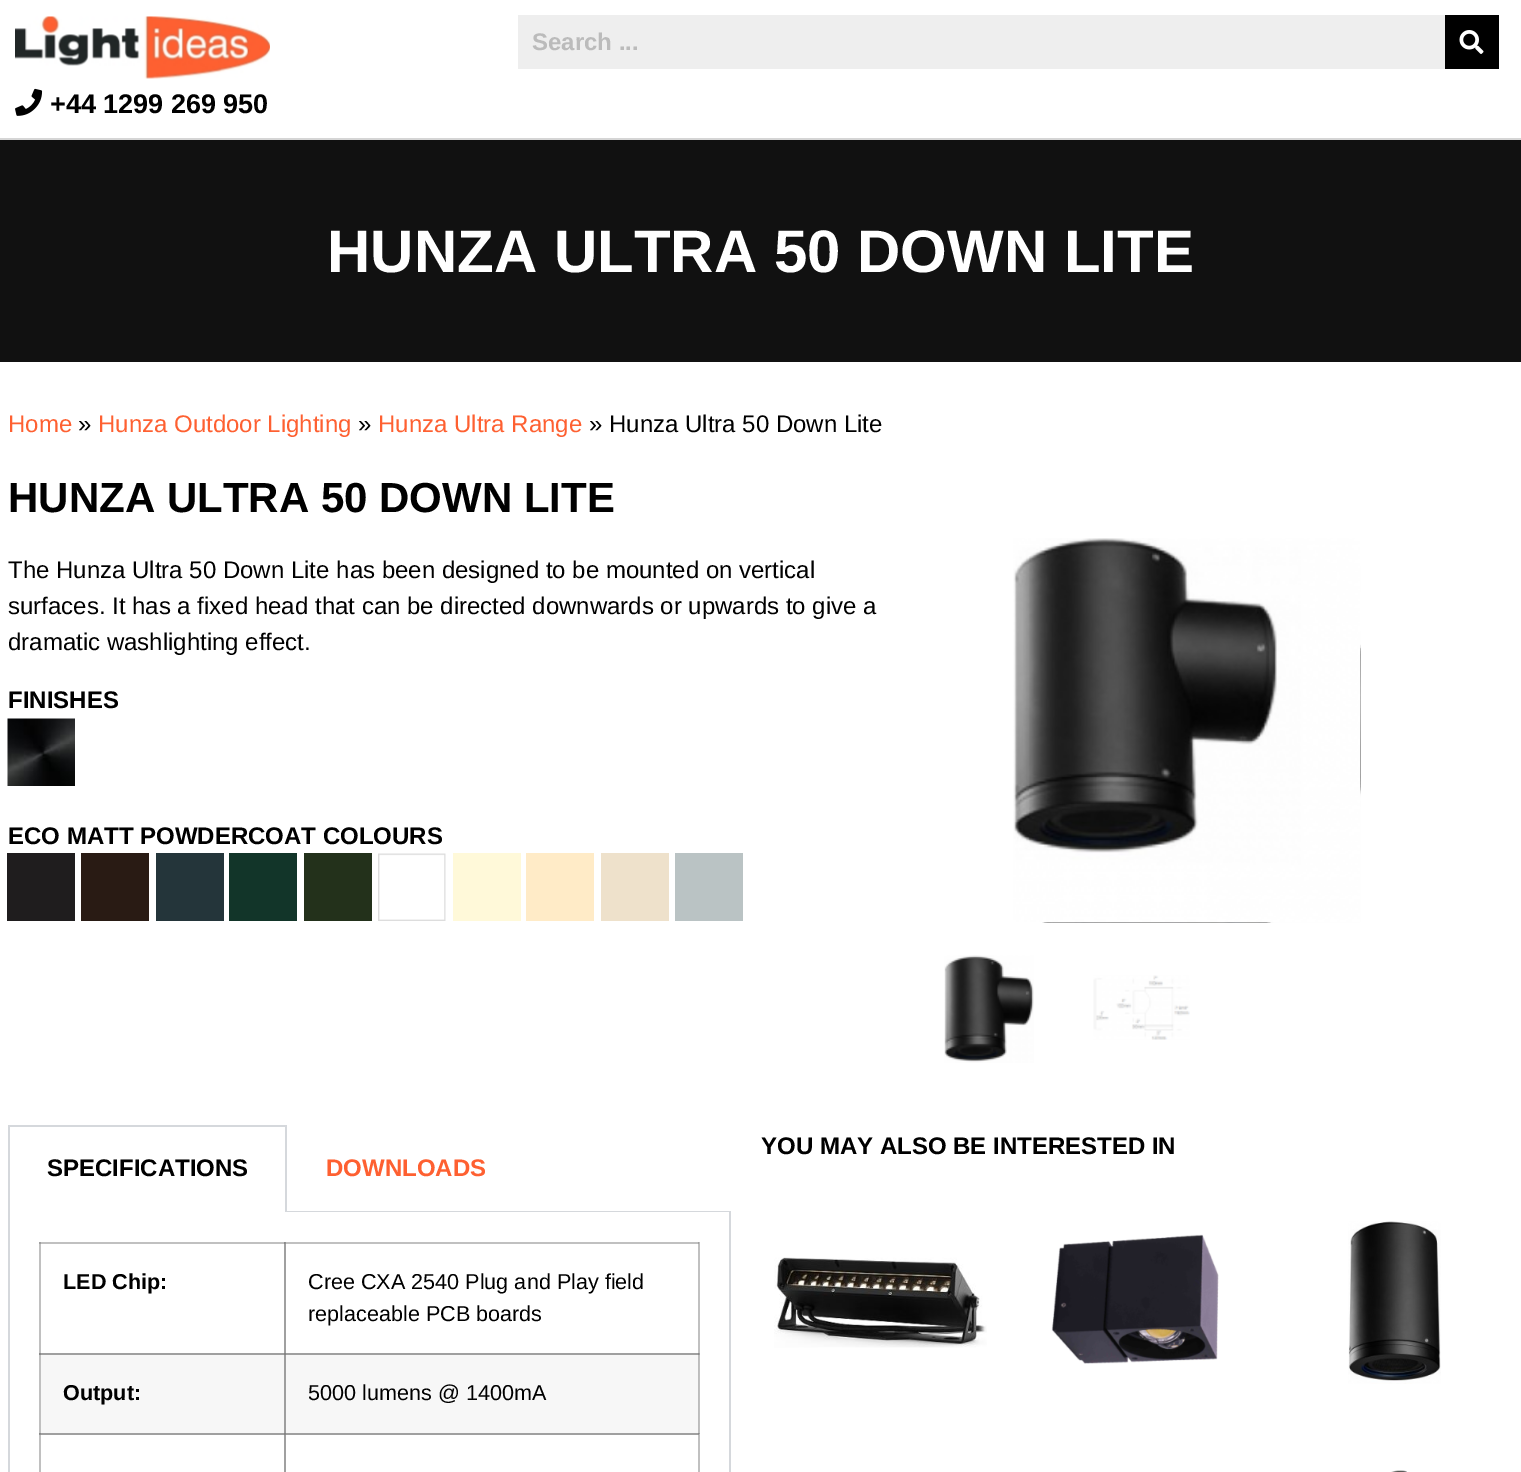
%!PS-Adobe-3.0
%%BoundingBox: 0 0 1521 1472
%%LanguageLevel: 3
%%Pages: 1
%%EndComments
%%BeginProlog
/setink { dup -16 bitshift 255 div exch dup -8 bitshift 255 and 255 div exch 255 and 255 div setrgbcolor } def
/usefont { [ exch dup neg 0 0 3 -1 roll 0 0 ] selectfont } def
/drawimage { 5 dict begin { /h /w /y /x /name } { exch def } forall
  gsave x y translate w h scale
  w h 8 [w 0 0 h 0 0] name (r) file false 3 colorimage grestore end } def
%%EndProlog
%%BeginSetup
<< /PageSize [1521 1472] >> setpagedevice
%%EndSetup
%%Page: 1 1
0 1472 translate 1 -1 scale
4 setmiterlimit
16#FFFFFF setink
0 0 1521 1472 rectfill
[
    [39 1242 2 230 16#C0C0C0]
    [39 1242 246 2 16#C0C0C0]
    [39 1242 2 2 16#A0A0A0]
    [284 1242 2 113 16#A0A0A0]
    [698 1242 2 113 16#C0C0C0]
    [39 1353 246 2 16#A0A0A0]
    [39 1353 2 2 16#888888]
    [699 1353 1 81 16#C0C0C0]
    [284 1353 416 2 16#A0A0A0]
    [39 1433 246 2 16#A0A0A0]
    [39 1434 2 1 16#909090]
    [39 1433 2 1 16#888888]
    [284 1433 2 39 16#A0A0A0]
    [698 1433 2 39 16#C0C0C0]
    [698 1433 2 1 16#A0A0A0]
    [0 138 1521 2 16#D5D5D5]
    [518 15 927 54 16#EEEEEE]
] { aload pop setink rectfill } forall
/LiberationSans-Bold 24 usefont
16#BBBBBB setink
532 50 moveto (Search ...) show
16#000000 setink
1445 15 54 54 rectfill
(img1.raw) 1459 30 25 24 drawimage
(img2.raw) 15 16 255 63 drawimage
(img3.raw) 15 88 28 28 drawimage
/LiberationSans-Bold 27 usefont
50 113 moveto (+44 1299 269 950) show
16#111111 setink
0 140 1521 222 rectfill
/LiberationSans-Bold 60 usefont
16#FFFFFF setink
327 272 moveto (HUNZA ULTRA 50 DOWN LITE) show
/LiberationSans-Regular 24 usefont
16#FE6031 setink
8 432 moveto (Home) show
16#000000 setink
78 432 moveto (») show
16#FE6031 setink
98 432 moveto (Hunza Outdoor Lighting) show
16#000000 setink
358 432 moveto (») show
16#FE6031 setink
378 432 moveto (Hunza Ultra Range) show
16#000000 setink
589 432 moveto (» Hunza Ultra 50 Down Lite) show
/LiberationSans-Bold 42 usefont
8 512 moveto (HUNZA ULTRA 50 DOWN LITE) show
/LiberationSans-Regular 24 usefont
[
    [(The Hunza Ultra 50 Down Lite has been designed to be mounted on vertical) 8 578]
    [(surfaces. It has a fixed head that can be directed downwards or upwards to give a) 8 614]
    [(dramatic washlighting effect.) 8 650]
] { aload pop moveto show } forall
/LiberationSans-Bold 24 usefont
8 708 moveto (FINISHES) show
(img4.raw) 7 718 68 68 drawimage
8 844 moveto (ECO MATT POWDERCOAT COLOURS) show
[
    [7 853 68 68 16#1F1D1E]
    [81 853 68 68 16#291B14]
    [156 853 68 68 16#24353A]
    [229 853 68 68 16#123529]
    [304 853 68 68 16#23311B]
] { aload pop setink rectfill } forall
(img5.raw) 378 853 68 68 drawimage
[
    [453 853 68 68 16#FFF9D9]
    [526 853 68 68 16#FFEBC7]
    [601 853 68 68 16#EEE1CB]
    [675 853 68 68 16#BAC3C4]
] { aload pop setink rectfill } forall
(img7.raw) 1042 555 319 368 drawimage
(img6.raw) 1013 538 348 385 drawimage
(img8.raw) 944 955 90 108 drawimage
(img9.raw) 1093 975 97 65 drawimage
16#000000 setink
761 1154 moveto (YOU MAY ALSO BE INTERESTED IN) show
(img10.raw) 774 1257 213 91 drawimage
(img11.raw) 1051 1234 168 130 drawimage
(img12.raw) 1348 1221 93 163 drawimage
(img13.raw) 1391 1470 16 2 drawimage
[
    [8 1125 279 2 16#D5D8DC]
    [285 1125 2 87 16#D5D8DC]
    [8 1125 2 87 16#D5D8DC]
] { aload pop setink rectfill } forall
16#000000 setink
47 1176 moveto (SPECIFICATIONS) show
16#D5D8DC setink
285 1211 446 1 rectfill
16#FE6031 setink
326 1176 moveto (DOWNLOADS) show
16#D5D8DC setink
729 1212 2 260 rectfill
8 1212 2 260 rectfill
/LiberationSans-Bold 21.6 usefont
16#000000 setink
63 1289 moveto (LED Chip:) show
[
    [284 1242 415 2 16#C0C0C0]
    [284 1242 2 2 16#909090]
    [284 1242 1 2 16#888888]
    [698 1242 1 2 16#A0A0A0]
] { aload pop setink rectfill } forall
/LiberationSans-Regular 21.6 usefont
16#000000 setink
308 1289 moveto (Cree CXA 2540 Plug and Play field) show
308 1321 moveto (replaceable PCB boards) show
16#F7F7F7 setink
41 1355 243 78 rectfill
16#9E9E9E setink
284 1355 2 78 rectfill
/LiberationSans-Bold 21.6 usefont
16#000000 setink
63 1400 moveto (Output:) show
[
    [286 1355 412 78 16#F7F7F7]
    [698 1355 1 78 16#BCBCBC]
    [284 1353 2 2 16#828282]
    [698 1353 1 2 16#888888]
] { aload pop setink rectfill } forall
/LiberationSans-Regular 21.6 usefont
16#000000 setink
308 1400 moveto (5000 lumens @ 1400mA) show
[
    [284 1433 415 2 16#A0A0A0]
    [284 1434 2 1 16#888888]
    [284 1433 2 1 16#828282]
    [284 1433 1 2 16#828282]
    [698 1433 1 2 16#909090]
    [698 1433 1 1 16#888888]
] { aload pop setink rectfill } forall
showpage
%%EOF
